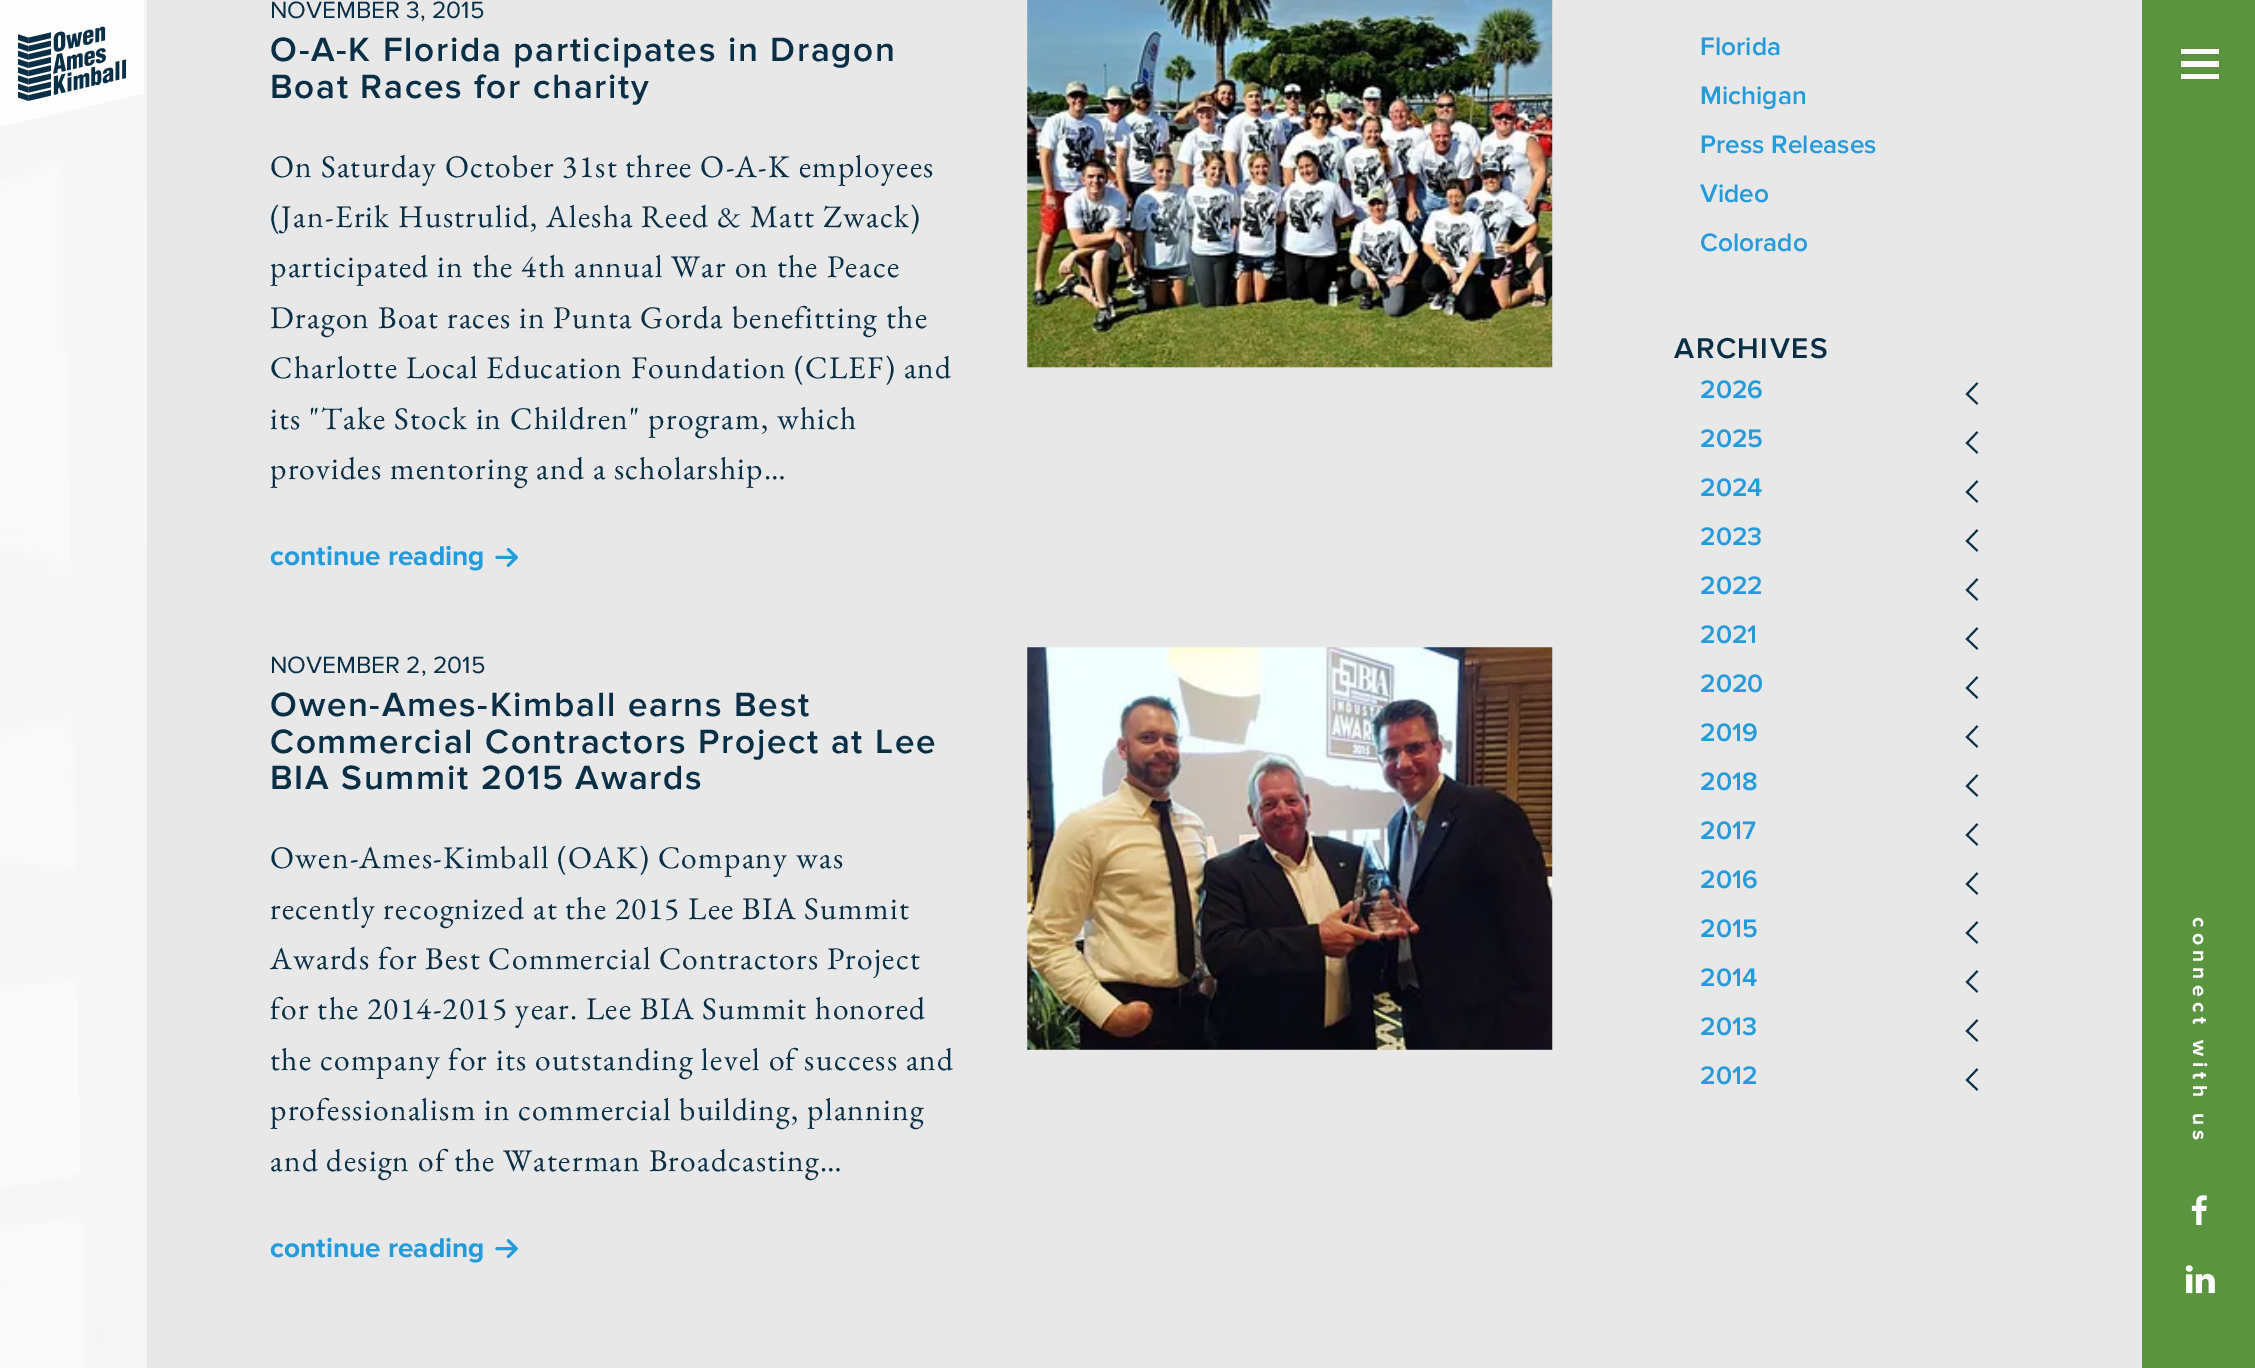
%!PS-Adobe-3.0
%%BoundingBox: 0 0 2255 1368
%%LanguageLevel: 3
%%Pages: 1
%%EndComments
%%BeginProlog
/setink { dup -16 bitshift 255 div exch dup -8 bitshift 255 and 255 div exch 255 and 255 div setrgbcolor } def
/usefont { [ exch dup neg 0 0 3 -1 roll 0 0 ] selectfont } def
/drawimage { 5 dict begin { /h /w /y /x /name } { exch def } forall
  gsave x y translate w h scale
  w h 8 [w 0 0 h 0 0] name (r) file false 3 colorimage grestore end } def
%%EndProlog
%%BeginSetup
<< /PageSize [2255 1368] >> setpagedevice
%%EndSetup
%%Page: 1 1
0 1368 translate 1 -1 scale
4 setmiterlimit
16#FFFFFF setink
0 0 2255 1368 rectfill
(img1.raw) 0 0 147 1368 drawimage
16#E8E8E8 setink
147 0 1995 1368 rectfill
/ProximaNova-Regular 24.5 usefont
16#092F47 setink
270 18 moveto (NOVEMBER 3, 2015) show
/ProximaNova-SemiBold 35 usefont
270 61 moveto 1.75 0 (O-A-K Florida participates in Dragon) ashow
270 98 moveto 1.75 0 (Boat Races for charity) ashow
/EBGaramond-Regular 31.5 usefont
270 177 moveto 1.25 0 (On Saturday October 31st three O-A-K employees) ashow
270 227 moveto 1.25 0 (\(Jan-Erik Hustrulid, Alesha Reed & Matt Zwack\)) ashow
270 277 moveto 1.25 0 (participated in the 4th annual War on the Peace) ashow
270 328 moveto 1.25 0 (Dragon Boat races in Punta Gorda benefitting the) ashow
270 378 moveto 1.25 0 (Charlotte Local Education Foundation \(CLEF\) and) ashow
270 429 moveto 1.25 0 (its "Take Stock in Children" program, which) ashow
270 479 moveto 1.25 0 (provides mentoring and a scholarship…) ashow
/ProximaNova-Bold 28 usefont
16#249CDC setink
270 565 moveto (continue reading) show
(img2.raw) 495 548 23 19 drawimage
16#DDDDDD setink
1027 0 525 368 rectfill
(img3.raw) 1027 0 526 368 drawimage
/ProximaNova-Regular 24.5 usefont
16#092F47 setink
270 673 moveto (NOVEMBER 2, 2015) show
/ProximaNova-SemiBold 35 usefont
270 716 moveto 1.75 0 (Owen-Ames-Kimball earns Best) ashow
270 753 moveto 1.75 0 (Commercial Contractors Project at Lee) ashow
270 789 moveto 1.75 0 (BIA Summit 2015 Awards) ashow
/EBGaramond-Regular 31.5 usefont
270 868 moveto 1.25 0 (Owen-Ames-Kimball \(OAK\) Company was) ashow
270 919 moveto 1.25 0 (recently recognized at the 2015 Lee BIA Summit) ashow
270 969 moveto 1.25 0 (Awards for Best Commercial Contractors Project) ashow
270 1019 moveto 1.25 0 (for the 2014-2015 year. Lee BIA Summit honored) ashow
270 1070 moveto 1.25 0 (the company for its outstanding level of success and) ashow
270 1120 moveto 1.25 0 (professionalism in commercial building, planning) ashow
270 1171 moveto 1.25 0 (and design of the Waterman Broadcasting…) ashow
/ProximaNova-Bold 28 usefont
16#249CDC setink
270 1257 moveto (continue reading) show
(img4.raw) 495 1239 23 19 drawimage
16#DDDDDD setink
1027 648 525 402 rectfill
(img5.raw) 1027 647 526 403 drawimage
/ProximaNova-SemiBold 26.25 usefont
16#249CDC setink
[
    [(Florida) 1700 55]
    [(Michigan) 1700 104]
    [(Press Releases) 1700 153]
    [(Video) 1700 202]
    [(Colorado) 1700 251]
] { aload pop moveto show } forall
/ProximaNova-SemiBold 29.75 usefont
16#092F47 setink
1674 358 moveto 1.5 0 (ARCHIVES) ashow
/ProximaNova-SemiBold 26.25 usefont
16#249CDC setink
1700 398 moveto (2026) show
16#092F47 setink
1.9 setlinewidth
1977.5 383 moveto 1967 394 lineto 1977.5 404 lineto stroke
16#249CDC setink
1700 447 moveto (2025) show
16#092F47 setink
1977.5 432 moveto 1967 443 lineto 1977.5 453 lineto stroke
16#249CDC setink
1700 496 moveto (2024) show
16#092F47 setink
1977.5 481 moveto 1967 492 lineto 1977.5 502 lineto stroke
16#249CDC setink
1700 545 moveto (2023) show
16#092F47 setink
1977.5 530 moveto 1967 541 lineto 1977.5 551 lineto stroke
16#249CDC setink
1700 594 moveto (2022) show
16#092F47 setink
1977.5 579 moveto 1967 590 lineto 1977.5 600 lineto stroke
16#249CDC setink
1700 643 moveto (2021) show
16#092F47 setink
1977.5 628 moveto 1967 639 lineto 1977.5 649 lineto stroke
16#249CDC setink
1700 692 moveto (2020) show
16#092F47 setink
1977.5 677 moveto 1967 688 lineto 1977.5 698 lineto stroke
16#249CDC setink
1700 741 moveto (2019) show
16#092F47 setink
1977.5 726 moveto 1967 737 lineto 1977.5 747 lineto stroke
16#249CDC setink
1700 790 moveto (2018) show
16#092F47 setink
1977.5 775 moveto 1967 786 lineto 1977.5 796 lineto stroke
16#249CDC setink
1700 839 moveto (2017) show
16#092F47 setink
1977.5 824 moveto 1967 835 lineto 1977.5 845 lineto stroke
16#249CDC setink
1700 888 moveto (2016) show
16#092F47 setink
1977.5 873 moveto 1967 884 lineto 1977.5 894 lineto stroke
16#249CDC setink
1700 937 moveto (2015) show
16#092F47 setink
1977.5 922 moveto 1967 933 lineto 1977.5 943 lineto stroke
16#249CDC setink
1700 986 moveto (2014) show
16#092F47 setink
1977.5 971 moveto 1967 982 lineto 1977.5 992 lineto stroke
16#249CDC setink
1700 1035 moveto (2013) show
16#092F47 setink
1977.5 1020 moveto 1967 1031 lineto 1977.5 1041 lineto stroke
16#249CDC setink
1700 1084 moveto (2012) show
16#092F47 setink
1977.5 1069 moveto 1967 1080 lineto 1977.5 1090 lineto stroke
16#5B943F setink
2142 0 113 1368 rectfill
gsave
0 0 144 128 rectclip
16#FEFEFE setink
166 -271 moveto 245 70 lineto -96 149 lineto -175 -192 lineto closepath fill
grestore
(img6.raw) 18 26 108 75 drawimage
[
    [2181 49 38 5 16#FFFFFF]
    [2181 61 38 6 16#FFFFFF]
    [2181 74 38 5 16#FFFFFF]
] { aload pop setink rectfill } forall
/ProximaNova-Bold 21 usefont
gsave 2193 917 translate 90 rotate 0 0 moveto 5.25 0 (connect with us) ashow grestore
(img7.raw) 2191 1195 16 30 drawimage
(img8.raw) 2185 1265 30 29 drawimage
showpage
%%EOF
